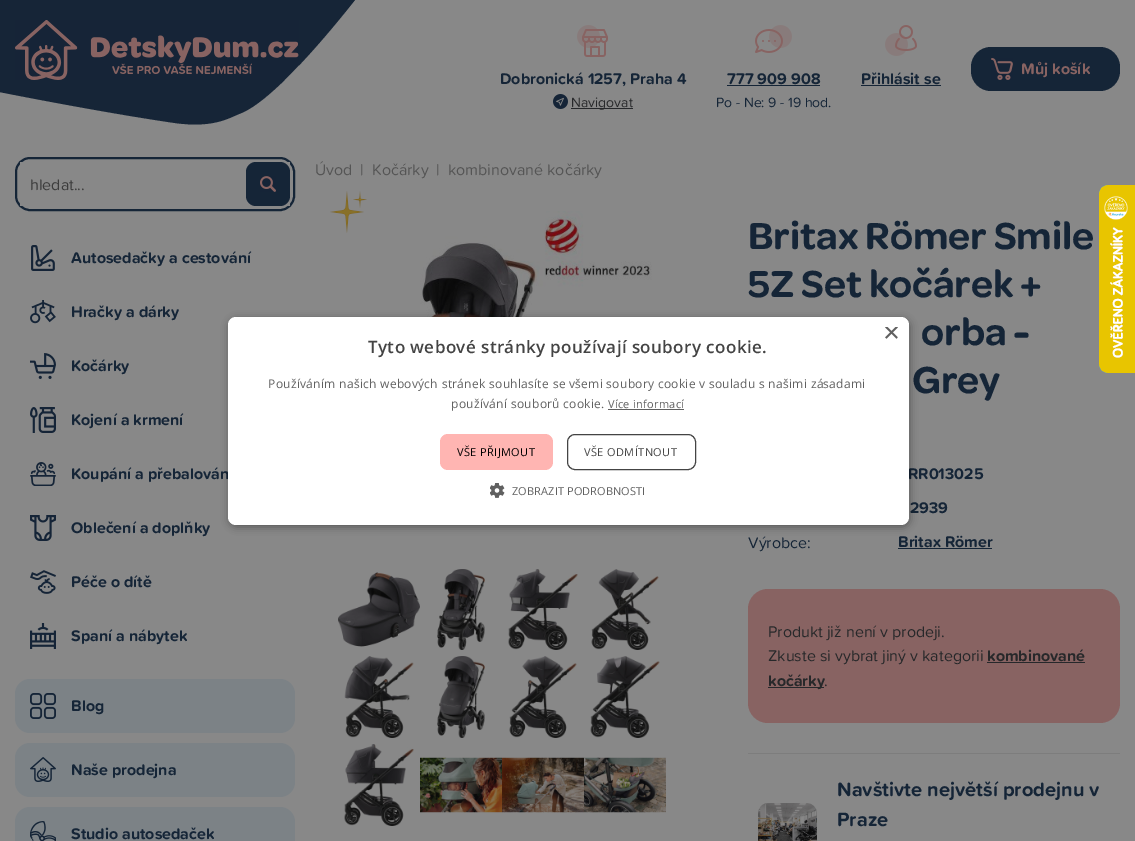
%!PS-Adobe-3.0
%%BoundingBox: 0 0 1135 841
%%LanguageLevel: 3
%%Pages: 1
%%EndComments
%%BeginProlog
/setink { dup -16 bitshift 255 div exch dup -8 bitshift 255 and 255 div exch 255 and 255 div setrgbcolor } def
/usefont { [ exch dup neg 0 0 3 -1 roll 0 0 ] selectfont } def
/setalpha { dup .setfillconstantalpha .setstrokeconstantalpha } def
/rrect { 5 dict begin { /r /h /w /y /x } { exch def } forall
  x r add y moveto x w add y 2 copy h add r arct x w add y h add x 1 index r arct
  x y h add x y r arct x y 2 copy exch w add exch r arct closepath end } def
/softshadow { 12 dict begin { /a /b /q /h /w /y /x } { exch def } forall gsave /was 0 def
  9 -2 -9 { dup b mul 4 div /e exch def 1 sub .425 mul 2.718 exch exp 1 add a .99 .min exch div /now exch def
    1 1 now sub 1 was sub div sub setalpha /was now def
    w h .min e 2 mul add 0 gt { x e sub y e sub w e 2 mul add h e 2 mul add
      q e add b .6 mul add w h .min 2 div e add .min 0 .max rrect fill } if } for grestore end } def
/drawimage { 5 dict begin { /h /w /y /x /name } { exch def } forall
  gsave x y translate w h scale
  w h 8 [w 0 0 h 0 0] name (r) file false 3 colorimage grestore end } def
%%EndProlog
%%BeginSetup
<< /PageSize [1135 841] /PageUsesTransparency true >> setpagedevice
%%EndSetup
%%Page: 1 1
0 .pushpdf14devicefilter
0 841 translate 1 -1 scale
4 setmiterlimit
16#888888 setink
0 0 1135 841 rectfill
16#162537 setink
-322 -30 moveto 378 -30 lineto 378 -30 284 98 239 114 curveto 227 119 212 128 175 123 curveto 58 106 -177 58 -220 41 curveto -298 11 -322 -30 -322 -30 curveto closepath fill
(img1.raw) 15 20 284 60 drawimage
16#152537 setink
971 47 149 44 20 rrect fill
(img2.raw) 991 58 22 22 drawimage
/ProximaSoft-Bold 16 usefont
16#886362 setink
1021 74 moveto (Můj košík) show
(img3.raw) 577 25 31 32 drawimage
16#152537 setink
500 84 moveto (Dobronická 1257, Praha 4) show
(img4.raw) 553 94 15 15 drawimage
16#26282B setink
571 108 62 1 rectfill
/ProximaSoft-Regular 14 usefont
16#27282A setink
571 107 moveto (Navigovat) show
(img5.raw) 755 25 37 28 drawimage
/ProximaSoft-Bold 16 usefont
16#152537 setink
727 84 moveto (777 909 908) show
727 85 93 1 rectfill
/ProximaSoft-Regular 14 usefont
716 107 moveto (Po - Ne: 9 - 19 hod.) show
(img6.raw) 885 25 32 31 drawimage
/ProximaSoft-Bold 16 usefont
861 84 moveto (Přihlásit se) show
861 85 80 1 rectfill
2 setlinewidth
16 158 278 52 14 rrect stroke
gsave
17 159 276 50 13 rrect clip newpath
16#888888 setink
20 162 270 44 rectfill
grestore
/ProximaSoft-Regular 16 usefont
16#3C3C3C setink
30 190 moveto (hledat...) show
16#152537 setink
246 162 44 44 10 rrect fill
(img7.raw) 260 176 16 16 drawimage
(img8.raw) 31 245 24 26 drawimage
/ProximaSoft-Bold 16 usefont
71 263 moveto (Autosedačky a cestování) show
(img9.raw) 30 300 26 24 drawimage
71 317 moveto (Hračky a dárky) show
(img10.raw) 30 353 26 26 drawimage
71 371 moveto (Kočárky) show
(img11.raw) 30 407 26 26 drawimage
71 425 moveto (Kojení a krmení) show
(img12.raw) 30 462 26 24 drawimage
71 479 moveto (Koupání a přebalován) show
(img13.raw) 30 515 26 26 drawimage
71 533 moveto (Oblečení a doplňky) show
(img14.raw) 30 570 26 24 drawimage
71 587 moveto (Péče o dítě) show
(img15.raw) 30 623 26 26 drawimage
71 641 moveto (Spaní a nábytek) show
16#7C8286 setink
15 679 280 54 15 rrect fill
(img16.raw) 30 693 26 26 drawimage
16#152537 setink
71 711 moveto (Blog) show
16#7C8286 setink
15 743 280 54 15 rrect fill
(img17.raw) 30 757 26 25 drawimage
16#152537 setink
71 775 moveto (Naše prodejna) show
16#7C8286 setink
15 807 280 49 15 rrect fill
(img18.raw) 30 821 26 20 drawimage
16#152537 setink
71 839 moveto (Studio autosedaček) show
/ProximaSoft-Regular 16 usefont
16#555555 setink
[
    [(Úvod) 315 175]
    [(|) 360 175]
    [(Kočárky) 372 175]
    [(|) 436 175]
    [(kombinované kočárky) 448 175]
] { aload pop moveto show } forall
(img19.raw) 330 191 37 42 drawimage
(img20.raw) 401 211 251 106 drawimage
(img21.raw) 338 572 82 75 drawimage
(img22.raw) 437 569 49 81 drawimage
(img23.raw) 508 569 70 81 drawimage
(img24.raw) 591 569 68 81 drawimage
(img25.raw) 344 656 70 82 drawimage
(img26.raw) 437 656 48 82 drawimage
(img27.raw) 509 656 68 82 drawimage
(img28.raw) 590 656 70 82 drawimage
(img29.raw) 344 744 70 82 drawimage
(img30.raw) 420 757 82 56 drawimage
(img31.raw) 502 757 82 56 drawimage
(img32.raw) 584 757 82 56 drawimage
/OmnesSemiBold-SemiBold 40 usefont
16#152537 setink
[
    [(Britax Römer Smile) 748 249]
    [(5Z Set kočárek +) 748 297]
    [(orba -) 921 345]
    [(Grey) 912 393]
] { aload pop moveto show } forall
/ProximaSoft-Bold 16 usefont
908 479 moveto (RR013025) show
910 513 moveto (2939) show
/ProximaSoft-Regular 16 usefont
748 548 moveto (Výrobce:) show
/ProximaSoft-Bold 16 usefont
898 547 moveto (Britax Römer) show
898 548 94 1 rectfill
16#886362 setink
748 589 372 134 20 rrect fill
/ProximaSoft-Regular 16 usefont
16#27282A setink
768 637 moveto (Produkt již není v prodeji.) show
768 661 moveto (Zkuste si vybrat jiný v kategorii) show
/ProximaSoft-Bold 16 usefont
987 661 moveto (kombinované) show
16#26282B setink
987 662 98 1 rectfill
768 687 56 1 rectfill
16#27282A setink
768 686 moveto (kočárky) show
/ProximaSoft-Regular 16 usefont
824 686 moveto (.) show
16#7D7D7D setink
748 753 372 1 rectfill
(img33.raw) 758 803 59 38 drawimage
/ProximaSoft-Bold 20 usefont
16#152537 setink
837 796 moveto (Navštivte největší prodejnu v) show
837 826 moveto (Praze) show
(img34.raw) 1099 185 36 188 drawimage
16#000000 setink
229 319 681 208 8 4 0.35 softshadow
16#FFFFFF setink
228 317 681 208 8 rrect fill
gsave
884 327 15 15 rectclip
/LiberationSans-Regular 29 usefont
16#606060 setink
883 342 moveto (×) show
grestore
/OpenSans-SemiBold 17 usefont
16#444444 setink
368 353 moveto 0.4 0 (Tyto webové stránky používají soubory cookie.) ashow
/OpenSans-Regular 12 usefont
16#606060 setink
268 388 moveto 0.3 0 (Používáním našich webových stránek souhlasíte se všemi soubory cookie v souladu s našimi zásadami) ashow
451 408 moveto 0.3 0 (používání souborů cookie.) ashow
/OpenSans-Regular 11 usefont
608 408 moveto 0.3 0 (Více informací) ashow
608 409 76 1 rectfill
16#FFB5B2 setink
440 434 113 36 8 rrect fill
16#000000 setink
457 456 moveto 0.4 0 (VŠE PŘIJMOUT) ashow
16#444444 setink
1 setlinewidth
567.5 434.5 128 35 7.5 rrect stroke
584 456 moveto 0.4 0 (VŠE ODMÍTNOUT) ashow
(img35.raw) 490 483 15 15 drawimage
16#606060 setink
512 495 moveto 0.1 0 (ZOBRAZIT PODROBNOSTI) ashow
.poppdf14devicefilter showpage
%%EOF
